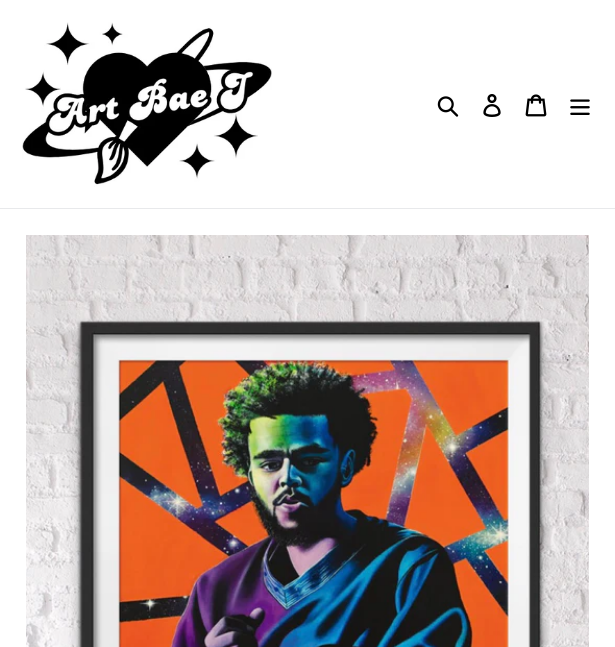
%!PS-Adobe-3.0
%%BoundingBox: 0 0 615 647
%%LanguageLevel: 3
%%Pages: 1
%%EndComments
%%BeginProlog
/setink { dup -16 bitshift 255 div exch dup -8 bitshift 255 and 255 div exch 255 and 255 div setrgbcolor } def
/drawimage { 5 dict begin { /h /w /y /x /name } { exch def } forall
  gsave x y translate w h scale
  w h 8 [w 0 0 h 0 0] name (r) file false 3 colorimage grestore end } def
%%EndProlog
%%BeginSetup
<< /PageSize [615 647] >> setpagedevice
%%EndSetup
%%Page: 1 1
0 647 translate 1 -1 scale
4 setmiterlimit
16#FFFFFF setink
0 0 615 647 rectfill
16#E8E9EB setink
0 208 615 1 rectfill
(img1.raw) 22 22 250 165 drawimage
(img2.raw) 437 96 22 21 drawimage
(img3.raw) 483 94 18 23 drawimage
(img4.raw) 525 94 22 23 drawimage
(img5.raw) 570 99 20 16 drawimage
(img6.raw) 26 235 563 412 drawimage
showpage
%%EOF
